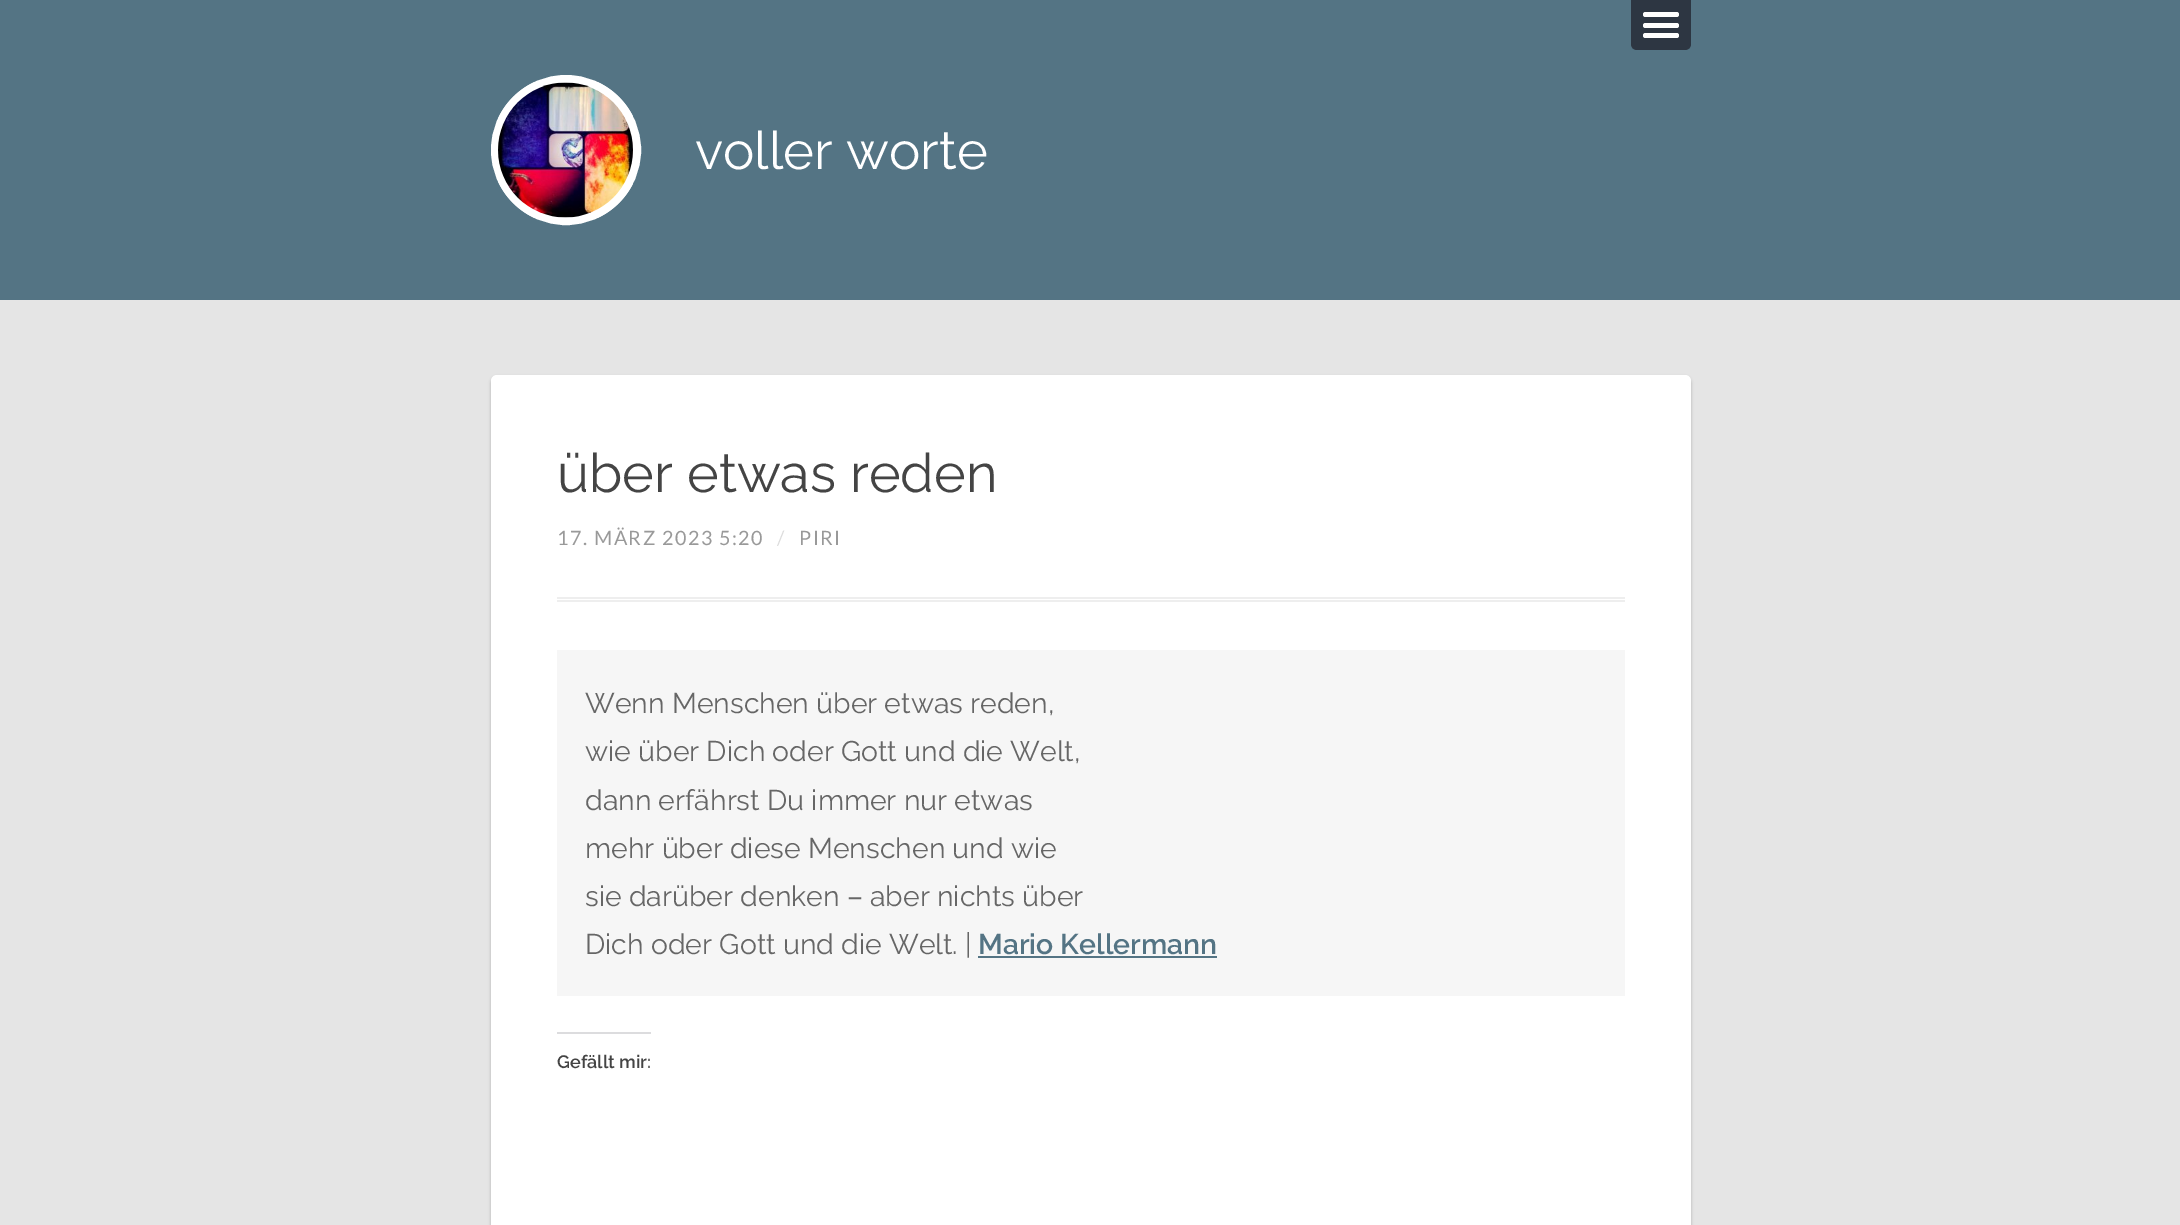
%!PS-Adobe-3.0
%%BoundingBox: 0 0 2180 1225
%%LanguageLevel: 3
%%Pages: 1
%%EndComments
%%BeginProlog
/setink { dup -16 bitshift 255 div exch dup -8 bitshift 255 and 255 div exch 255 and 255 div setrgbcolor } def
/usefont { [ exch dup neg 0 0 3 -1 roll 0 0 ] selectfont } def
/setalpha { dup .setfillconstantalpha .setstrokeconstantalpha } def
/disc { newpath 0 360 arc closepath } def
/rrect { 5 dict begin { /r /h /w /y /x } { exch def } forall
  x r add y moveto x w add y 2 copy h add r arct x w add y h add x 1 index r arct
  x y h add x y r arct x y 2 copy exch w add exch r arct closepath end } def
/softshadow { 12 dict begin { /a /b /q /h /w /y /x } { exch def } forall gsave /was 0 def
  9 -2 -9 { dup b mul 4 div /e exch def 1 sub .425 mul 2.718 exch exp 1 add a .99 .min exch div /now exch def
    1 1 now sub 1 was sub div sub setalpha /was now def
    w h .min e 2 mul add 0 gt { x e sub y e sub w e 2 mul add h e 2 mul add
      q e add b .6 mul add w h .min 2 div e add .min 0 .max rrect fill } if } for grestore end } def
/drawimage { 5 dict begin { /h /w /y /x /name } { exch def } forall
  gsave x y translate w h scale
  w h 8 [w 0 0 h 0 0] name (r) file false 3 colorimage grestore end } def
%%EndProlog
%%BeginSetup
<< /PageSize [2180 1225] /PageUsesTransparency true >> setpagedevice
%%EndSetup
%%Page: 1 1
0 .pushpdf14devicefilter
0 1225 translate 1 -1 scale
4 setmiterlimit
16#E5E5E5 setink
0 0 2180 1225 rectfill
16#547484 setink
0 0 2180 300 rectfill
16#2D3642 setink
1631 0 moveto 1691 0 lineto 1691 44 lineto 1691 47.5 1688.5 50 1685 50 curveto 1637 50 lineto 1633.5 50 1631 47.5 1631 44 curveto closepath fill
16#FFFFFF setink
1643 12 36 5 2.5 rrect fill
1643 23 36 5 2.5 rrect fill
1643 33 36 5 2.5 rrect fill
8 setlinewidth
566 150 71 disc stroke
(img1.raw) 498 82 135 136 drawimage
/Raleway-Thin 52.75 usefont
695 169 moveto (voller worte) show
16#000000 setink
491 377 1200 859 6 1.5 0.2 softshadow
16#FFFFFF setink
491 375 1200 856 6 rrect fill
16#EEEEEE setink
557 597 1068 2 rectfill
557 600 1068 2 rectfill
/Raleway-Thin 54 usefont
16#444444 setink
557 492 moveto (über etwas reden) show
/Lato-Regular 19.75 usefont
16#999999 setink
557 545 moveto 1.5 0 (17. MÄRZ 2023 5:20) ashow
16#DDDDDD setink
777 545 moveto 1.5 0 (/) ashow
16#999999 setink
799 545 moveto 1.5 0 (PIRI) ashow
16#F6F6F6 setink
557 650 1068 346 rectfill
/Raleway-Thin 28.4 usefont
16#666666 setink
[
    [(Wenn Menschen über etwas reden,) 585 713]
    [(wie über Dich oder Gott und die Welt,) 585 761]
    [(dann erfährst Du immer nur etwas) 585 810]
    [(mehr über diese Menschen und wie) 585 858]
    [(sie darüber denken – aber nichts über) 585 906]
    [(Dich oder Gott und die Welt. |) 585 954]
] { aload pop moveto show } forall
/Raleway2-Thin 28.4 usefont
16#547484 setink
978 954 moveto (Mario Kellermann) show
978 956 239 2 rectfill
16#DCDCDE setink
557 1032 94 2 rectfill
/Raleway2-Thin 18 usefont
16#444444 setink
557 1068 moveto (Gefällt mir:) show
.poppdf14devicefilter showpage
%%EOF
